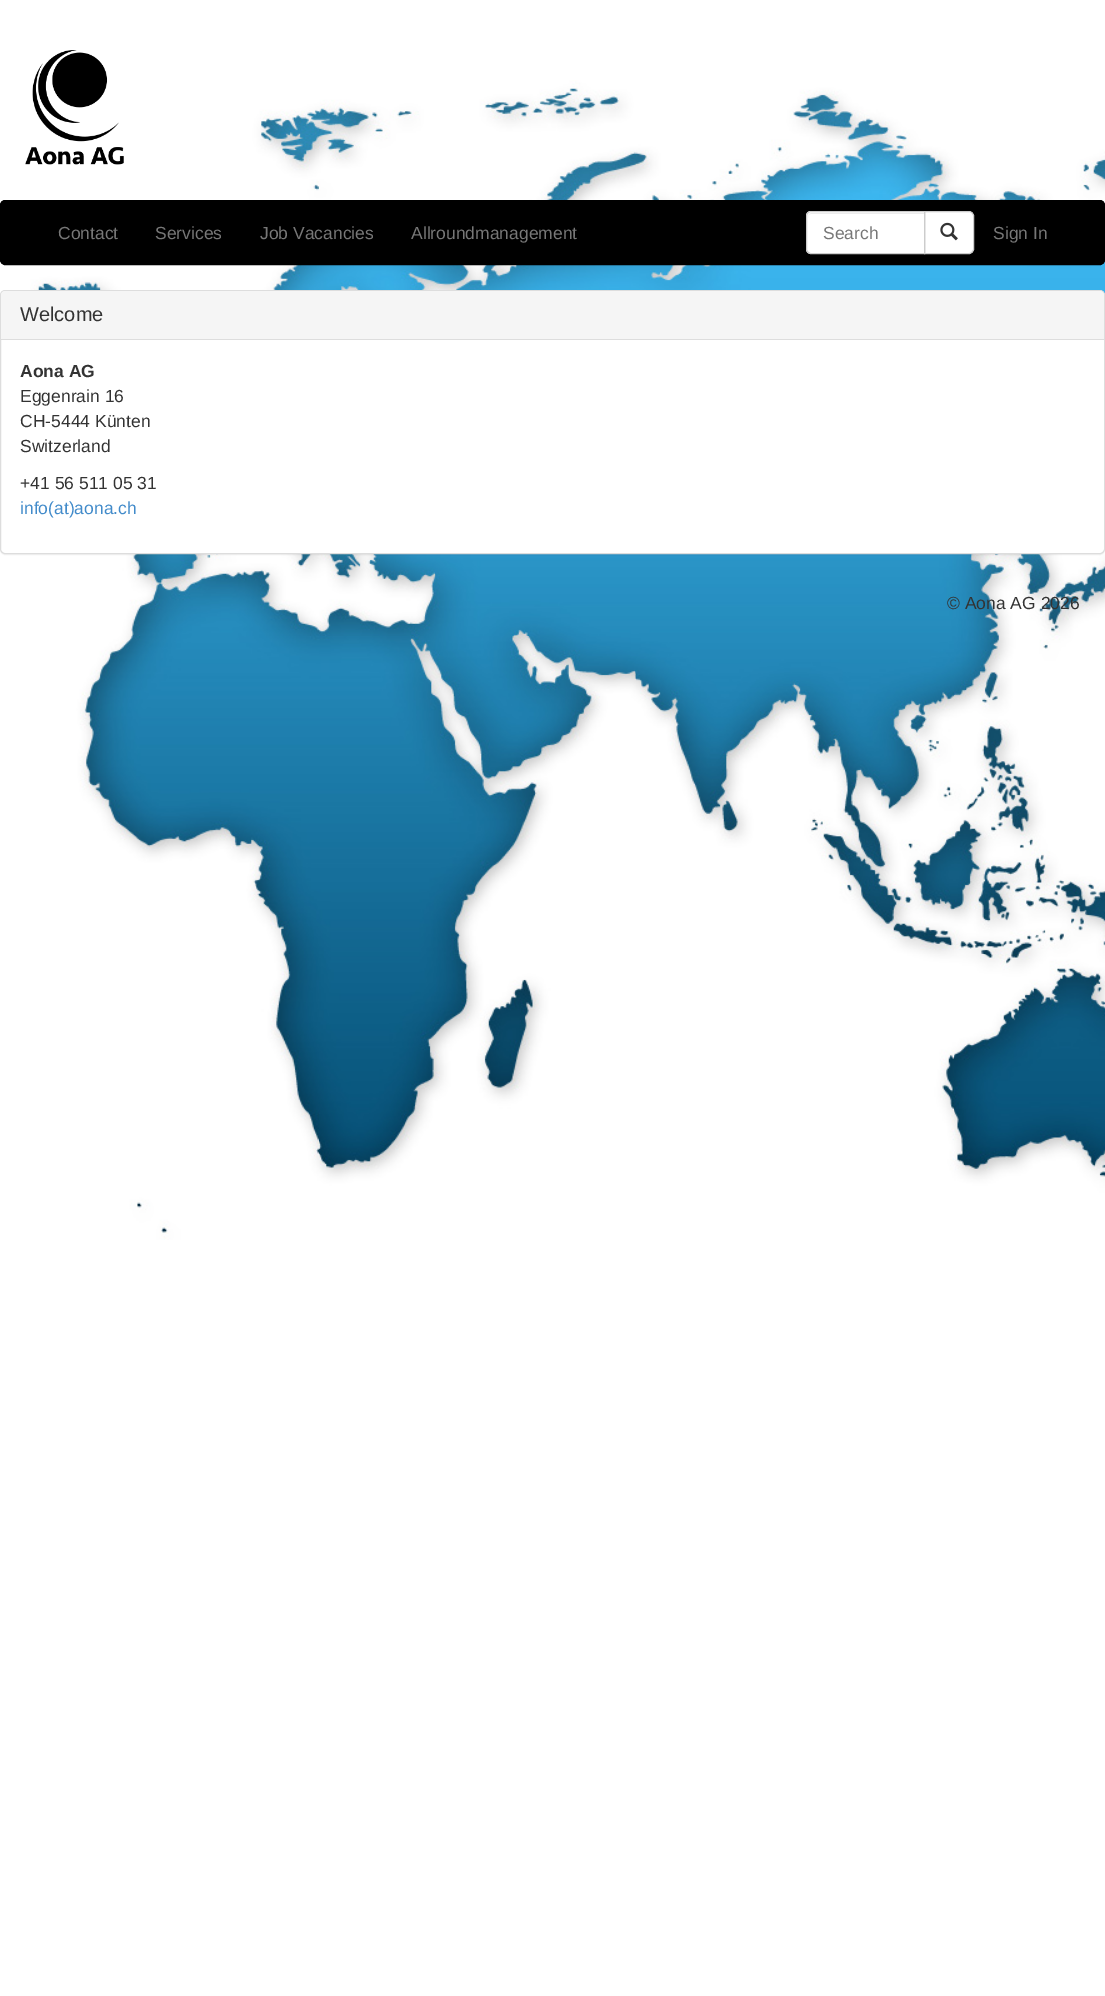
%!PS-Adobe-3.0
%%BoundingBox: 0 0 1105 1996
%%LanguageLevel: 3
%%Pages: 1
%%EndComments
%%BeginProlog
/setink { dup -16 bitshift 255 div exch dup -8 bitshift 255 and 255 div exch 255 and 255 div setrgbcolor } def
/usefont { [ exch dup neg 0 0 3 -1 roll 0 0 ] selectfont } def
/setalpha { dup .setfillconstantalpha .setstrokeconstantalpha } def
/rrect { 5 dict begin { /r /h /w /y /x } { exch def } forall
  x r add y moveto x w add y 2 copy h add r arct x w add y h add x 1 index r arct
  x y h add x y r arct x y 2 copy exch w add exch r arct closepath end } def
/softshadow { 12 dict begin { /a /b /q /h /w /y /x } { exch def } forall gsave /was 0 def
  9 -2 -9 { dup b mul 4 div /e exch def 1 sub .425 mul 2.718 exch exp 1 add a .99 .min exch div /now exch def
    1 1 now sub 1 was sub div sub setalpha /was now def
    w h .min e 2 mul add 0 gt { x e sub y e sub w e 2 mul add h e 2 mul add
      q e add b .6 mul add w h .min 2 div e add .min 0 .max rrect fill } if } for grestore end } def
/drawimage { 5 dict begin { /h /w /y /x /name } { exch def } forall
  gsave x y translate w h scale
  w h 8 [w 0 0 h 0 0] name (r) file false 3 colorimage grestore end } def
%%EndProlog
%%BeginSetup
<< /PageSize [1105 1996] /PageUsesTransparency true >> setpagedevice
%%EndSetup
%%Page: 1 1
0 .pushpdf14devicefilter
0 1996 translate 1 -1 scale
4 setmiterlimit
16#FFFFFF setink
0 0 1105 1996 rectfill
(img1.raw) 30 80 1075 1160 drawimage
(img2.raw) 25 50 99 115 drawimage
16#000000 setink
0.5 200.5 1104 64 4.5 rrect gsave fill grestore
stroke
/LiberationSans-Regular 17.5 usefont
16#777777 setink
[
    [(Contact) 58 239]
    [(Services) 155 239]
    [(Job Vacancies) 260 239]
    [(Allroundmanagement) 411 239]
] { aload pop moveto show } forall
16#FFFFFF setink
924.5 211.5 moveto 969 211.5 lineto 971.5 211.5 973.5 213.5 973.5 216 curveto 973.5 249 lineto 973.5 251.5 971.5 253.5 969 253.5 curveto 924.5 253.5 lineto closepath gsave fill grestore
16#CCCCCC setink
stroke
16#FFFFFF setink
811 211 moveto 925 211 lineto 925 254 lineto 811 254 lineto 808 254 806 252 806 249 curveto 806 216 lineto 806 213 808 211 811 211 curveto closepath fill
16#ECECEC setink
811 214 moveto 924 214 lineto 924 213 lineto 812 213 lineto 810 213 808 215 808 217 curveto 808 218 lineto 808 215 809 214 811 214 curveto closepath fill
16#CCCCCC setink
811 211.5 moveto 924.5 211.5 lineto 924.5 253.5 lineto 811 253.5 lineto 808.5 253.5 806.5 251.5 806.5 249 curveto 806.5 216 lineto 806.5 213.5 808.5 211.5 811 211.5 curveto closepath stroke
16#777777 setink
823 239 moveto (Search) show
(img3.raw) 940 222 18 19 drawimage
993 239 moveto (Sign In) show
16#000000 setink
0 291 1105 264 5 0.5 0.05 softshadow
16#FFFFFF setink
0.5 290.5 1104 263 4.5 rrect gsave fill grestore
16#DDDDDD setink
stroke
16#F5F5F5 setink
5 291 moveto 1100 291 lineto 1102 291 1104 293 1104 295 curveto 1104 340 lineto 1 340 lineto 1 295 lineto 1 293 3 291 5 291 curveto closepath fill
16#DDDDDD setink
1 339 1103 1 rectfill
/LiberationSans-Regular 20 usefont
16#333333 setink
20 321 moveto (Welcome) show
/LiberationSans-Bold 17.5 usefont
20 377 moveto (Aona AG) show
/LiberationSans-Regular 17.5 usefont
[
    [(Eggenrain 16) 20 402]
    [(CH-5444 Künten) 20 427]
    [(Switzerland) 20 452]
    [(+41 56 511 05 31) 20 489]
] { aload pop moveto show } forall
16#428BCA setink
20 514 moveto (info\(at\)aona.ch) show
16#333333 setink
947 609 moveto (© Aona AG 2026) show
.poppdf14devicefilter showpage
%%EOF
